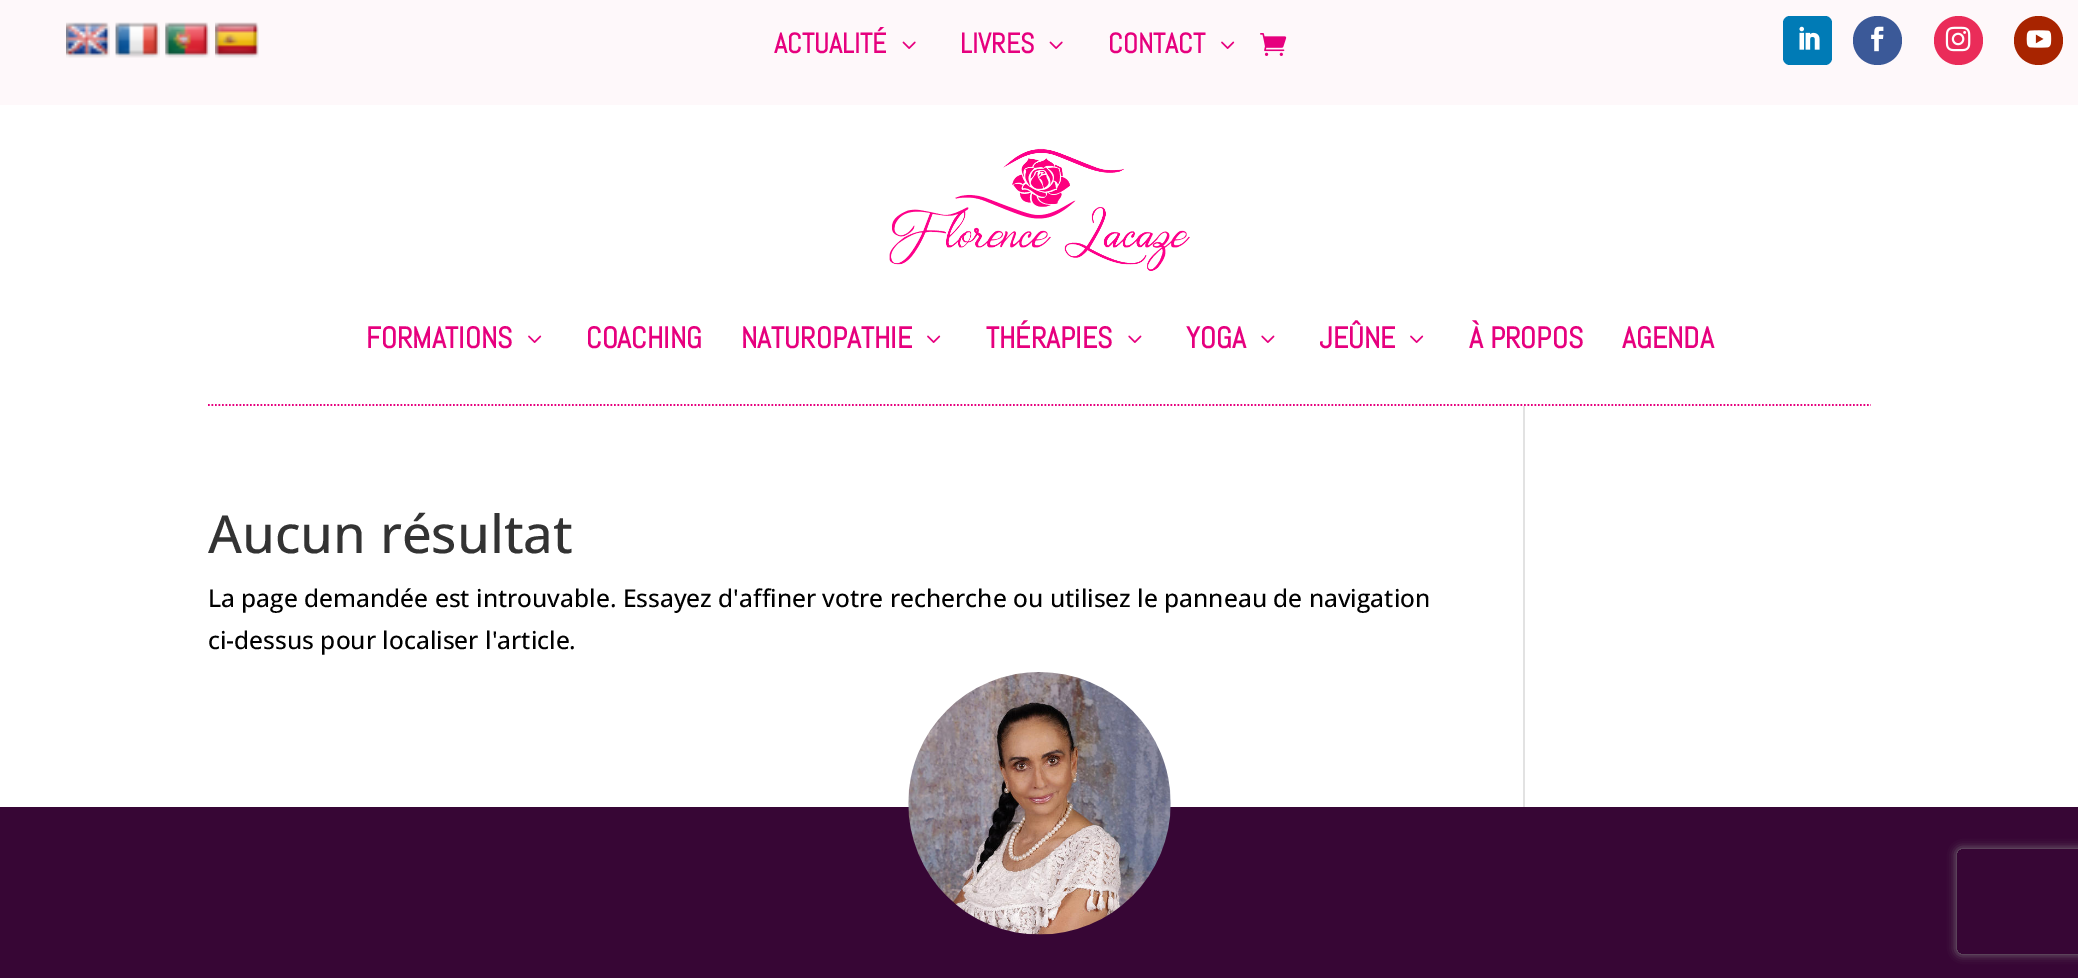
%!PS-Adobe-3.0
%%BoundingBox: 0 0 2078 978
%%LanguageLevel: 3
%%Pages: 1
%%EndComments
%%BeginProlog
/setink { dup -16 bitshift 255 div exch dup -8 bitshift 255 and 255 div exch 255 and 255 div setrgbcolor } def
/usefont { [ exch dup neg 0 0 3 -1 roll 0 0 ] selectfont } def
/setalpha { dup .setfillconstantalpha .setstrokeconstantalpha } def
/disc { newpath 0 360 arc closepath } def
/rrect { 5 dict begin { /r /h /w /y /x } { exch def } forall
  x r add y moveto x w add y 2 copy h add r arct x w add y h add x 1 index r arct
  x y h add x y r arct x y 2 copy exch w add exch r arct closepath end } def
/softshadow { 12 dict begin { /a /b /q /h /w /y /x } { exch def } forall gsave /was 0 def
  9 -2 -9 { dup b mul 4 div /e exch def 1 sub .425 mul 2.718 exch exp 1 add a .99 .min exch div /now exch def
    1 1 now sub 1 was sub div sub setalpha /was now def
    w h .min e 2 mul add 0 gt { x e sub y e sub w e 2 mul add h e 2 mul add
      q e add b .6 mul add w h .min 2 div e add .min 0 .max rrect fill } if } for grestore end } def
/drawimage { 5 dict begin { /h /w /y /x /name } { exch def } forall
  gsave x y translate w h scale
  w h 8 [w 0 0 h 0 0] name (r) file false 3 colorimage grestore end } def
%%EndProlog
%%BeginSetup
<< /PageSize [2078 978] /PageUsesTransparency true >> setpagedevice
%%EndSetup
%%Page: 1 1
0 .pushpdf14devicefilter
0 978 translate 1 -1 scale
4 setmiterlimit
16#FFFFFF setink
0 0 2078 978 rectfill
16#FEF8FA setink
0 0 2078 105 rectfill
(img1.raw) 66 22 44 36 drawimage
(img2.raw) 115 22 45 36 drawimage
(img3.raw) 165 22 45 36 drawimage
(img4.raw) 215 22 44 36 drawimage
/Abel-Bold 28 usefont
16#E6007E setink
774 53 moveto (ACTUALITÉ) show
(img5.raw) 902 41 14 8 drawimage
960 53 moveto (LIVRES) show
(img5.raw) 1049 41 14 8 drawimage
1108 53 moveto (CONTACT) show
(img6.raw) 1221 41 14 8 drawimage
(img7.raw) 1260 33 27 23 drawimage
16#007BB6 setink
1783 16 49 49 7 rrect fill
(img8.raw) 1799 26 21 24 drawimage
16#3B5998 setink
1877.5 40.5 24.5 disc fill
(img9.raw) 1871 26 13 26 drawimage
16#EA2C59 setink
1958.5 40.5 24.5 disc fill
(img10.raw) 1945 26 26 26 drawimage
16#A82400 setink
2038.5 40.5 24.5 disc fill
(img11.raw) 2026 30 26 18 drawimage
16#E6007E setink
1.8 setlinewidth
[1.75 1.75] 0 setdash
208 405 moveto 1871 405 lineto stroke
(img12.raw) 889 148 301 123 drawimage
/Abel-Bold 29.75 usefont
366 348 moveto (FORMATIONS) show
(img13.raw) 528 335 14 8 drawimage
586 348 moveto (COACHING) show
741 348 moveto (NATUROPATHIE) show
(img13.raw) 927 335 14 8 drawimage
986 348 moveto (THÉRAPIES) show
(img14.raw) 1128 335 14 8 drawimage
1186 348 moveto (YOGA) show
(img14.raw) 1261 335 14 8 drawimage
1319 348 moveto (JEÛNE) show
(img13.raw) 1410 335 14 8 drawimage
1469 348 moveto (À PROPOS) show
1622 348 moveto (AGENDA) show
/OpenSans-Medium 52.5 usefont
16#333333 setink
208 553 moveto (Aucun résultat) show
/OpenSans-Medium 24.5 usefont
16#000000 setink
208 607 moveto (La page demandée est introuvable. Essayez d'affiner votre recherche ou utilisez le panneau de navigation) show
208 649 moveto (ci-dessus pour localiser l'article.) show
16#E2E2E2 setink
1523 406 2 401 rectfill
16#370635 setink
0 807 2078 171 rectfill
(img15.raw) 908 672 263 263 drawimage
gsave
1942 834 moveto 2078 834 lineto 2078 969 lineto 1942 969 lineto closepath 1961 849 moveto 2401 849 lineto 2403 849 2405 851 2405 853 curveto 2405 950 lineto 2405 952 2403 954 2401 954 curveto 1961 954 lineto 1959 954 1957 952 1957 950 curveto 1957 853 lineto 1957 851 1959 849 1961 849 curveto closepath eoclip newpath
16#808080 setink
1957 849 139 105 4 4.5 1 softshadow
grestore
.poppdf14devicefilter showpage
%%EOF
